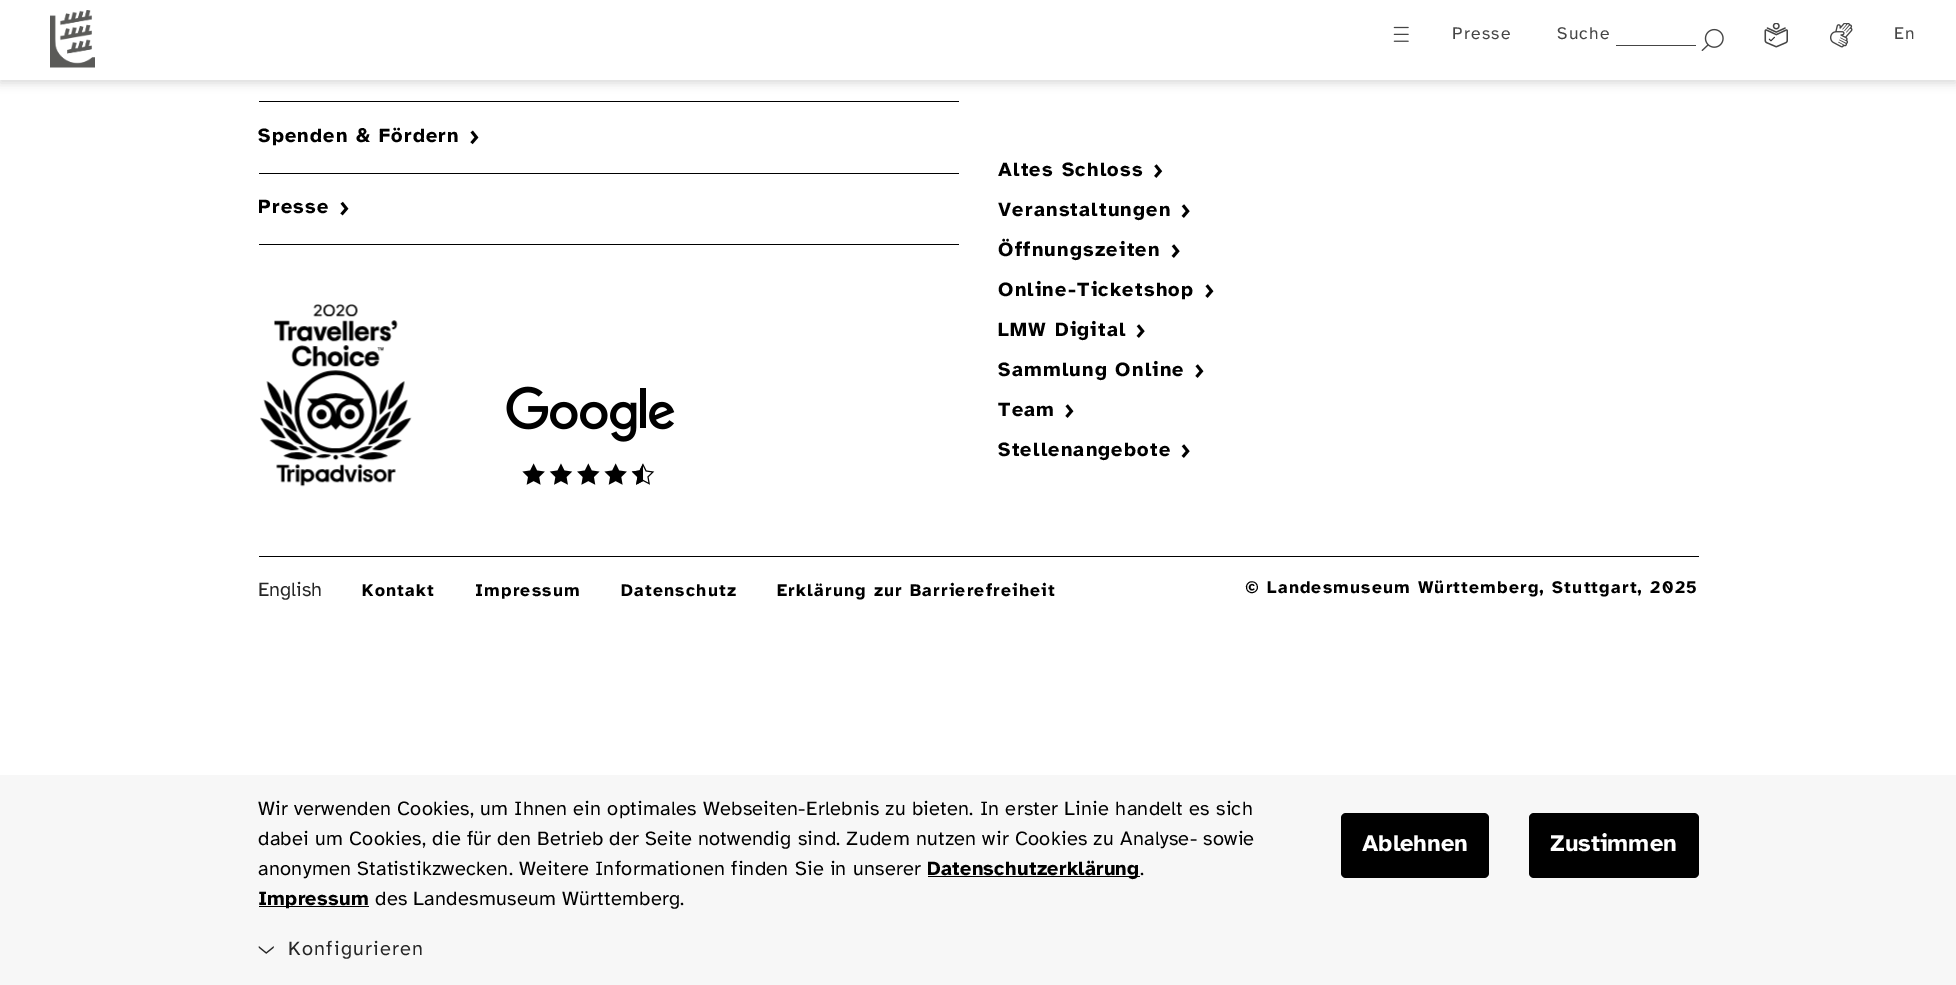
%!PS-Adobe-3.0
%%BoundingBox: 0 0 1956 985
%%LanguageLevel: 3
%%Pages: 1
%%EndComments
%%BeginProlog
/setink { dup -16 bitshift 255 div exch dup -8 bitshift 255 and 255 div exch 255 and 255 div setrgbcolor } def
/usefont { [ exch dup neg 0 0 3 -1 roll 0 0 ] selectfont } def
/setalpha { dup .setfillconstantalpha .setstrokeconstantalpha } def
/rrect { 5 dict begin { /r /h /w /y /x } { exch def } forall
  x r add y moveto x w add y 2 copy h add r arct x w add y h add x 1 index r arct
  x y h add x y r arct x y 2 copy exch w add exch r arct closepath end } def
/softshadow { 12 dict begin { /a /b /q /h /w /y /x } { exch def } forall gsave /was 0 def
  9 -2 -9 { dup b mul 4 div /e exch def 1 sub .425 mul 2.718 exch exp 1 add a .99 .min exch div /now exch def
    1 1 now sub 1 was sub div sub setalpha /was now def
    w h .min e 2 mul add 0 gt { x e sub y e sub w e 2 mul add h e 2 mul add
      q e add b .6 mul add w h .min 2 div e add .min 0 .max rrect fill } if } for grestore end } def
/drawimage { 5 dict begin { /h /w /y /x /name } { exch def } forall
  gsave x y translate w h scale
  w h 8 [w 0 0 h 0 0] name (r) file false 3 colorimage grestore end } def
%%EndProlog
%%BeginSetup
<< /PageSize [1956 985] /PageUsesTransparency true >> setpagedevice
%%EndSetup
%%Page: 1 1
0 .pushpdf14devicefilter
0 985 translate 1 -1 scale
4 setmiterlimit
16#FFFFFF setink
0 0 1956 985 rectfill
16#000000 setink
0 3 1956 80 0 5 0.15 softshadow
16#FFFFFF setink
0 0 1956 80 rectfill
(img1.raw) 50 10 45 58 drawimage
(img2.raw) 1393 26 16 16 drawimage
/AtkinsonHyperlegible-Regular 17.5 usefont
16#454545 setink
1452 39 moveto 1.25 0 (Presse) ashow
1557 39 moveto 1.25 0 (Suche) ashow
1616 45 80 1 rectfill
(img3.raw) 1701 28 23 23 drawimage
(img4.raw) 1764 23 24 25 drawimage
(img5.raw) 1830 23 23 25 drawimage
1894 39 moveto 1.25 0 (En) ashow
16#000000 setink
259 101 700 1 rectfill
259 173 700 1 rectfill
/AtkinsonHyperlegible-Bold 20 usefont
258 142 moveto 1.25 0 (Spenden & Fördern) ashow
(img6.raw) 470 130 9 15 drawimage
259 244 700 1 rectfill
258 213 moveto 1.25 0 (Presse) ashow
(img7.raw) 340 201 9 15 drawimage
(img8.raw) 260 304 152 183 drawimage
(img9.raw) 506 386 169 99 drawimage
998 176 moveto 1.25 0 (Altes Schloss) ashow
(img10.raw) 1154 164 9 14 drawimage
998 216 moveto 1.25 0 (Veranstaltungen) ashow
(img11.raw) 1181 204 9 14 drawimage
998 256 moveto 1.25 0 (Öffnungszeiten) ashow
(img11.raw) 1171 244 9 14 drawimage
998 296 moveto 1.25 0 (Online-Ticketshop) ashow
(img12.raw) 1205 284 9 14 drawimage
998 336 moveto 1.25 0 (LMW Digital) ashow
(img11.raw) 1136 324 9 14 drawimage
998 376 moveto 1.25 0 (Sammlung Online) ashow
(img12.raw) 1195 364 9 14 drawimage
998 416 moveto 1.25 0 (Team) ashow
(img12.raw) 1065 404 9 14 drawimage
998 456 moveto 1.25 0 (Stellenangebote) ashow
(img11.raw) 1181 444 9 14 drawimage
259 556 1440 1 rectfill
/AtkinsonHyperlegible-Regular 20 usefont
16#262626 setink
258 596 moveto (English) show
/AtkinsonHyperlegible-Bold 17.5 usefont
16#000000 setink
362 596 moveto 1.25 0 (Kontakt) ashow
475 596 moveto 1.25 0 (Impressum) ashow
621 596 moveto 1.25 0 (Datenschutz) ashow
777 596 moveto 1.25 0 (Erklärung zur Barrierefreiheit) ashow
1245 593 moveto 1.25 0 (© Landesmuseum Württemberg, Stuttgart, 2025) ashow
16#F7F7F7 setink
0 775 1956 210 rectfill
/AtkinsonHyperlegible-Regular 20 usefont
16#000000 setink
258 815 moveto 0.31 0 (Wir verwenden Cookies, um Ihnen ein optimales Webseiten-Erlebnis zu bieten. In erster Linie handelt es sich) ashow
258 845 moveto 0.31 0 (dabei um Cookies, die für den Betrieb der Seite notwendig sind. Zudem nutzen wir Cookies zu Analyse- sowie) ashow
258 875 moveto 0.31 0 (anonymen Statistikzwecken. Weitere Informationen finden Sie in unserer) ashow
928 876 212 1 rectfill
/AtkinsonHyperlegible-Bold 20 usefont
927 875 moveto 0.31 0 (Datenschutzerklärung) ashow
/AtkinsonHyperlegible-Regular 20 usefont
1140 875 moveto 0.31 0 (.) ashow
259 906 110 1 rectfill
/AtkinsonHyperlegible-Bold 20 usefont
258 905 moveto 0.31 0 (Impressum) ashow
/AtkinsonHyperlegible-Regular 20 usefont
375 905 moveto 0.31 0 (des Landesmuseum Württemberg.) ashow
1341 813 148 65 5 rrect fill
/AtkinsonHyperlegible-Bold 23.75 usefont
16#FFFFFF setink
1362 851 moveto (Ablehnen) show
16#000000 setink
1529 813 170 65 5 rrect fill
16#FFFFFF setink
1550 851 moveto (Zustimmen) show
(img13.raw) 258 946 16 8 drawimage
/AtkinsonHyperlegible-Regular 20 usefont
16#262626 setink
288 955 moveto 1.25 0 (Konfigurieren) ashow
.poppdf14devicefilter showpage
%%EOF
